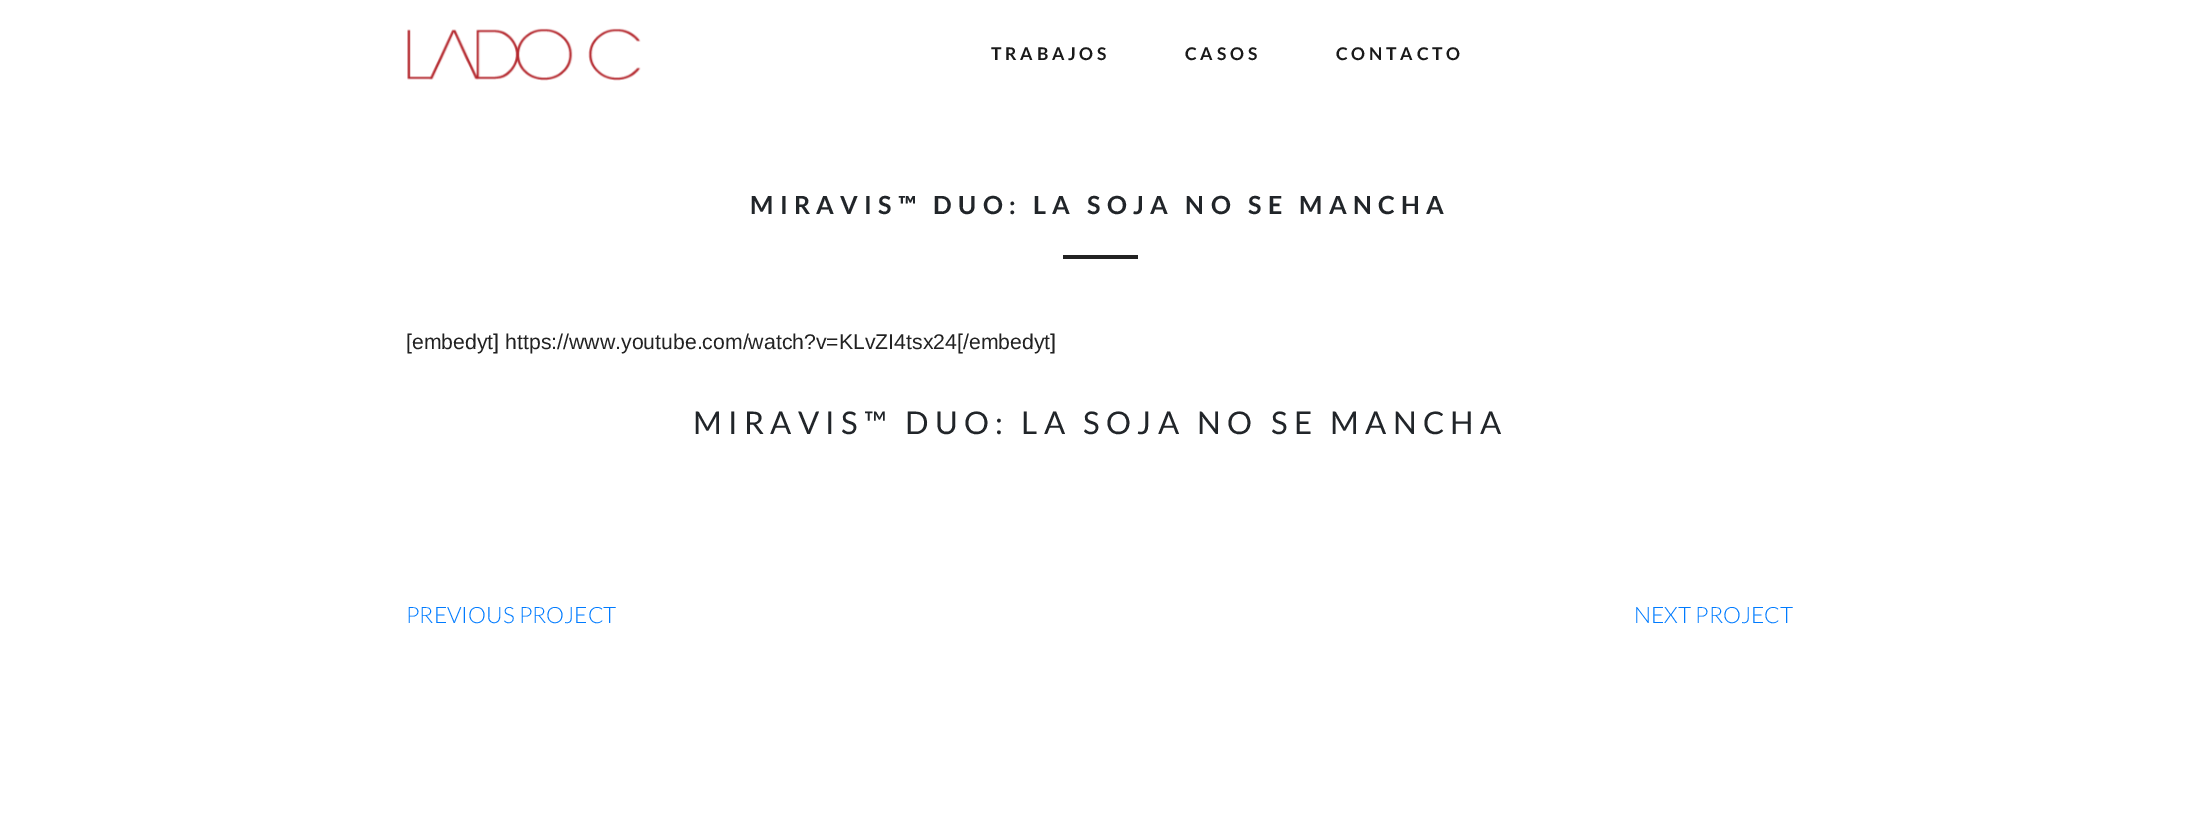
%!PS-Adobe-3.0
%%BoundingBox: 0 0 2199 840
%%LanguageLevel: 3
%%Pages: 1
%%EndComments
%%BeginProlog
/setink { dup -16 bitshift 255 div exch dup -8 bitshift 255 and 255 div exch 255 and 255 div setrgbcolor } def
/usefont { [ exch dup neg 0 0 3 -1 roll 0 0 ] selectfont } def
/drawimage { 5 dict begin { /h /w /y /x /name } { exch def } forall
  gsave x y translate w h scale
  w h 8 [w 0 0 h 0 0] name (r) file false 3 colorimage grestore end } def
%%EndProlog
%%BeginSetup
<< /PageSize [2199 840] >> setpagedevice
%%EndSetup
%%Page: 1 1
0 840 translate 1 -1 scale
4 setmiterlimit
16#FFFFFF setink
0 0 2199 840 rectfill
(img1.raw) 407 28 234 53 drawimage
/Lato-Bold 17.5 usefont
16#1A1A1A setink
991 60 moveto 3.75 0 (TRABAJOS) ashow
1185 60 moveto 3.75 0 (CASOS) ashow
1336 60 moveto 3.75 0 (CONTACTO) ashow
/Lato-Bold 25 usefont
16#212529 setink
750 214 moveto 6.25 0 (MIRAVIS™ DUO: LA SOJA NO SE MANCHA) ashow
16#222222 setink
1063 255 75 4 rectfill
/LiberationSans-Regular 21.25 usefont
406 349 moveto ([embedyt] https://www.youtube.com/watch?v=KLvZI4tsx24[/embedyt]) show
/Lato-Regular 31.25 usefont
16#212529 setink
693 434 moveto 6.25 0 (MIRAVIS™ DUO: LA SOJA NO SE MANCHA) ashow
/Lato-Light 22.5 usefont
16#007BFF setink
406 623 moveto (PREVIOUS PROJECT) show
1634 623 moveto (NEXT PROJECT) show
showpage
%%EOF
